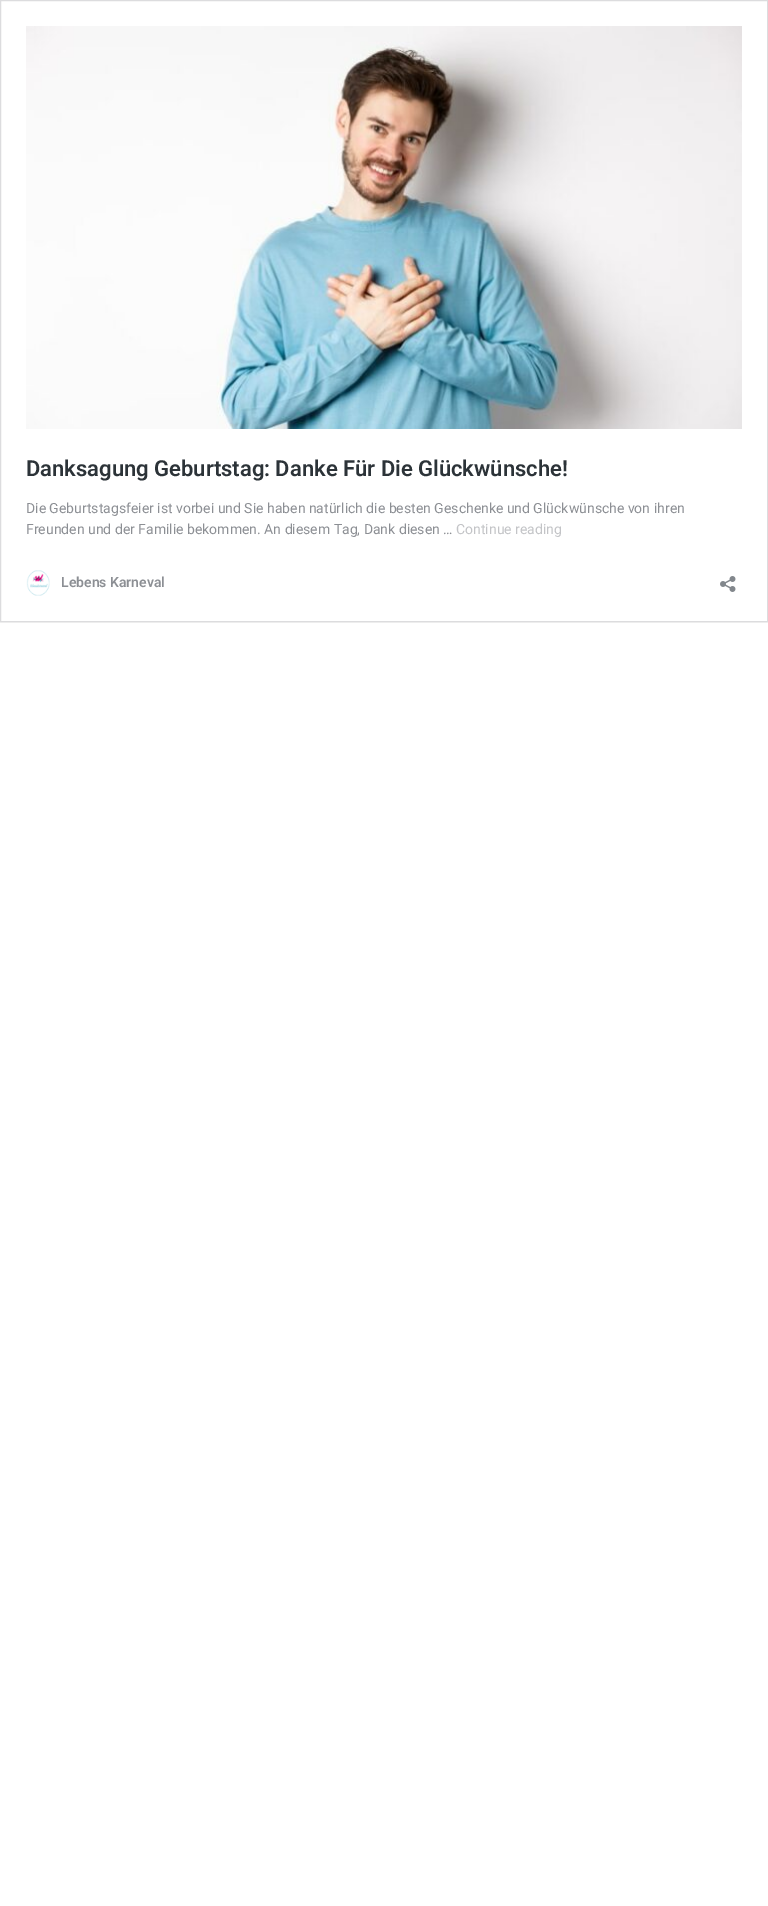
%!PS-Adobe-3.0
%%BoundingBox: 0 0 768 1906
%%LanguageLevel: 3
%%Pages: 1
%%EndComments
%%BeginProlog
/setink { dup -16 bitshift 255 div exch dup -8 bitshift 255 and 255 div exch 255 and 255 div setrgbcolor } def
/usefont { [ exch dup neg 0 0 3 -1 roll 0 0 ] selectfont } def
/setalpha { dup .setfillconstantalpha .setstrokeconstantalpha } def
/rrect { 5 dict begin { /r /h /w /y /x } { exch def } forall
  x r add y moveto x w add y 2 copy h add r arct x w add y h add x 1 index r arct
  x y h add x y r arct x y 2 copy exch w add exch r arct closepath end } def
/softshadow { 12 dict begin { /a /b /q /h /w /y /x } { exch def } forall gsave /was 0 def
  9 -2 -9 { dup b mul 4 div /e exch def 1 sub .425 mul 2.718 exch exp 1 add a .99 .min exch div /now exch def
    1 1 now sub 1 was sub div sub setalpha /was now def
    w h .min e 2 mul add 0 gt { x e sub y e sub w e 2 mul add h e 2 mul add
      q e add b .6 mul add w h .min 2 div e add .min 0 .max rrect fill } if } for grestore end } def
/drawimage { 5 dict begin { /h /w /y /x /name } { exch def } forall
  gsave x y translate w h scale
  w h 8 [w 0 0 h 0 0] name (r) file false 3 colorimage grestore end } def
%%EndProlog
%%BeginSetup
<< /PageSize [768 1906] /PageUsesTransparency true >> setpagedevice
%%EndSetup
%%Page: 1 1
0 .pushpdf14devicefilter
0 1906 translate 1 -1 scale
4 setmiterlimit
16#FFFFFF setink
0 0 768 1906 rectfill
gsave
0 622 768 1 rectclip
16#000000 setink
0 1 768 622 0 0.5 0.05 softshadow
grestore
16#DCDCDE setink
0.5 0.5 767 621 rectstroke
(img1.raw) 26 26 716 403 drawimage
/Roboto-SemiBold 22 usefont
16#2C3338 setink
26 476 moveto (Danksagung Geburtstag: Danke Für Die Glückwünsche!) show
/Roboto-Regular 14 usefont
16#8C8F94 setink
26 513 moveto (Die Geburtstagsfeier ist vorbei und Sie haben natürlich die besten Geschenke und Glückwünsche von ihren) show
26 534 moveto (Freunden und der Familie bekommen. An diesem Tag, Dank diesen …) show
16#C3C4C7 setink
456 534 moveto (Continue reading) show
(img2.raw) 26 570 24 26 drawimage
/Roboto-SemiBold 14 usefont
16#8C8F94 setink
61 587 moveto (Lebens Karneval) show
(img3.raw) 720 576 16 16 drawimage
.poppdf14devicefilter showpage
%%EOF
